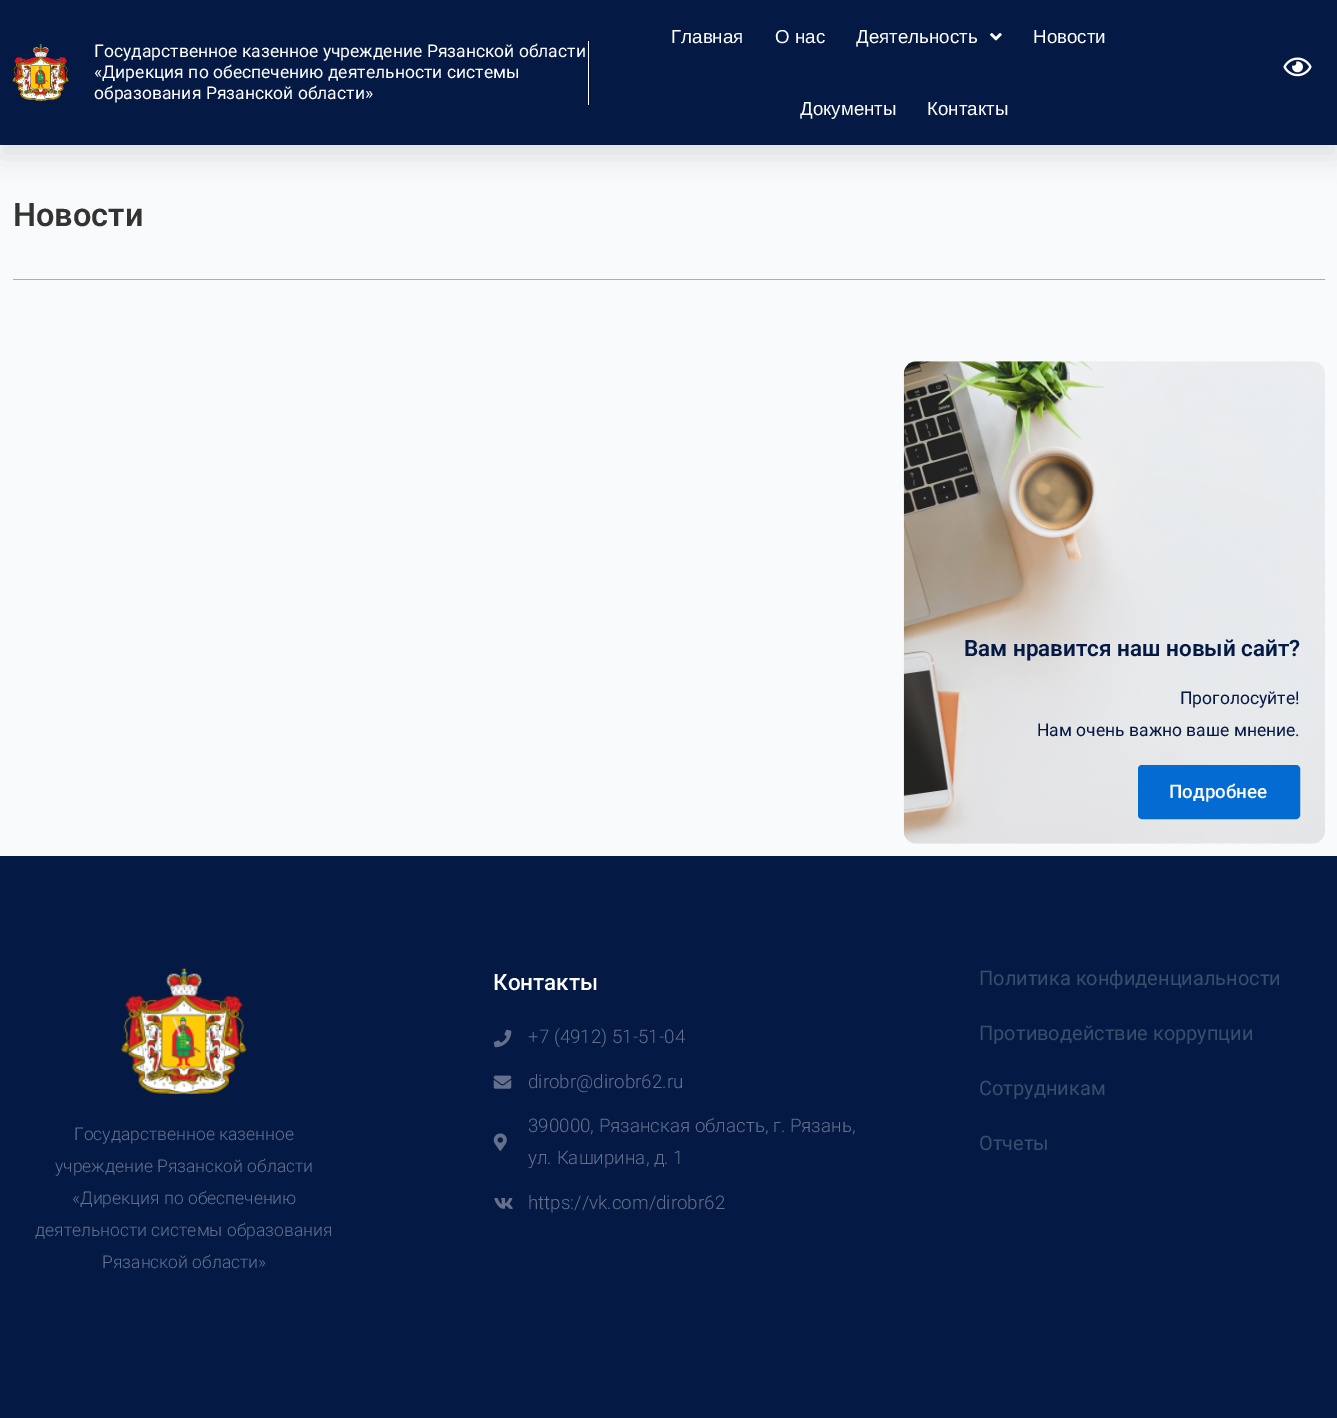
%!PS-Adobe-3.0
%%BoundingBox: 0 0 1337 1418
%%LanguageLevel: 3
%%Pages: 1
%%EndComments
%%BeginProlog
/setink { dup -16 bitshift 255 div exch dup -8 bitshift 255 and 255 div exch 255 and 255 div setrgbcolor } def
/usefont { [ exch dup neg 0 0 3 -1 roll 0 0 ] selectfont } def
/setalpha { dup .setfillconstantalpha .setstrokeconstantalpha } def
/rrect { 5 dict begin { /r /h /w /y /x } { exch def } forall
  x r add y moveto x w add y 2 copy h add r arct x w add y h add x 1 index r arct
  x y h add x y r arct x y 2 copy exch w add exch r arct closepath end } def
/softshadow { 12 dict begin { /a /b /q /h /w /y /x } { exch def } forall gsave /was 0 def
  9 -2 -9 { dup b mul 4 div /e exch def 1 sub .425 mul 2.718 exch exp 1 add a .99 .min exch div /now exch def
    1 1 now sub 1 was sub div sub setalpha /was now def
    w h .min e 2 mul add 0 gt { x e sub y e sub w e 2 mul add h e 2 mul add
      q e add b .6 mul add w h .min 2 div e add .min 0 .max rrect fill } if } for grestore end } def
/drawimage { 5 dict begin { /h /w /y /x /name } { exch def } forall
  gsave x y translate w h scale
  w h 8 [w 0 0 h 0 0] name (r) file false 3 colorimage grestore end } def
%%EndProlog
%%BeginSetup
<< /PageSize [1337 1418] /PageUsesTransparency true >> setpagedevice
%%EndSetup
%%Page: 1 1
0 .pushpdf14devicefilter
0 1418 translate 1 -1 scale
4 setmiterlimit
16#F9FAFB setink
0 0 1337 1418 rectfill
16#FFFFFF setink
0 145 1337 1 rectfill
16#000000 setink
0 13 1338 145 0 12.5 0.1 softshadow
16#051945 setink
0 0 1337 145 rectfill
(img1.raw) 12 43 57 58 drawimage
16#FFFFFF setink
588 41 1 64 rectfill
/Roboto-Regular 17.5 usefont
[
    [(Государственное казенное учреждение Рязанской области) 94 57]
    [(«Дирекция по обеспечению деятельности системы) 94 78]
    [(образования Рязанской области») 94 99]
] { aload pop moveto show } forall
/LiberationSans-Regular 18.75 usefont
[
    [(Главная) 671 43]
    [(О нас) 775 43]
    [(Деятельность) 856 43]
] { aload pop moveto show } forall
(img2.raw) 990 33 12 8 drawimage
[
    [(Новости) 1033 43]
    [(Документы) 800 115]
    [(Контакты) 927 115]
] { aload pop moveto show } forall
(img3.raw) 1283 57 29 20 drawimage
/Roboto-SemiBold 32.5 usefont
16#333333 setink
13 226 moveto (Новости) show
16#AAACAE setink
13 279 1312 1 rectfill
(img4.raw) 903 361 422 483 drawimage
/Roboto-SemiBold 22.5 usefont
16#051945 setink
964 656 moveto (Вам нравится наш новый сайт?) show
/Roboto-Regular 17.5 usefont
1180 704 moveto (Проголосуйте!) show
1037 736 moveto (Нам очень важно ваше мнение.) show
16#046BD2 setink
1139.5 766.5 159 51 2.5 rrect gsave fill grestore
3 setlinewidth
stroke
/Roboto-Medium 18.75 usefont
16#FFFFFF setink
1169 798 moveto (Подробнее) show
16#051945 setink
0 856 1337 562 rectfill
(img5.raw) 121 968 126 126 drawimage
/Roboto-Light 17.5 usefont
16#64708C setink
[
    [(Государственное казенное) 74 1140]
    [(учреждение Рязанской области) 55 1172]
    [(«Дирекция по обеспечению) 72 1204]
    [(деятельности системы образования) 35 1236]
    [(Рязанской области») 102 1268]
] { aload pop moveto show } forall
/Roboto-Medium 22.5 usefont
16#FFFFFF setink
493 990 moveto (Контакты) show
(img6.raw) 493 1029 19 19 drawimage
/Roboto-Light 18.75 usefont
16#64708C setink
528 1043 moveto (+7 \(4912\) 51-51-04) show
(img7.raw) 493 1075 19 14 drawimage
528 1088 moveto (dirobr@dirobr62.ru) show
(img8.raw) 493 1133 14 18 drawimage
528 1132 moveto (390000, Рязанская область, г. Рязань,) show
528 1164 moveto (ул. Каширина, д. 1) show
(img9.raw) 494 1198 19 11 drawimage
528 1209 moveto (https://vk.com/dirobr62) show
/Roboto-Regular 20 usefont
16#384E6B setink
[
    [(Политика конфиденциальности) 979 985]
    [(Противодействие коррупции) 979 1040]
    [(Сотрудникам) 979 1095]
    [(Отчеты) 979 1150]
] { aload pop moveto show } forall
.poppdf14devicefilter showpage
%%EOF
